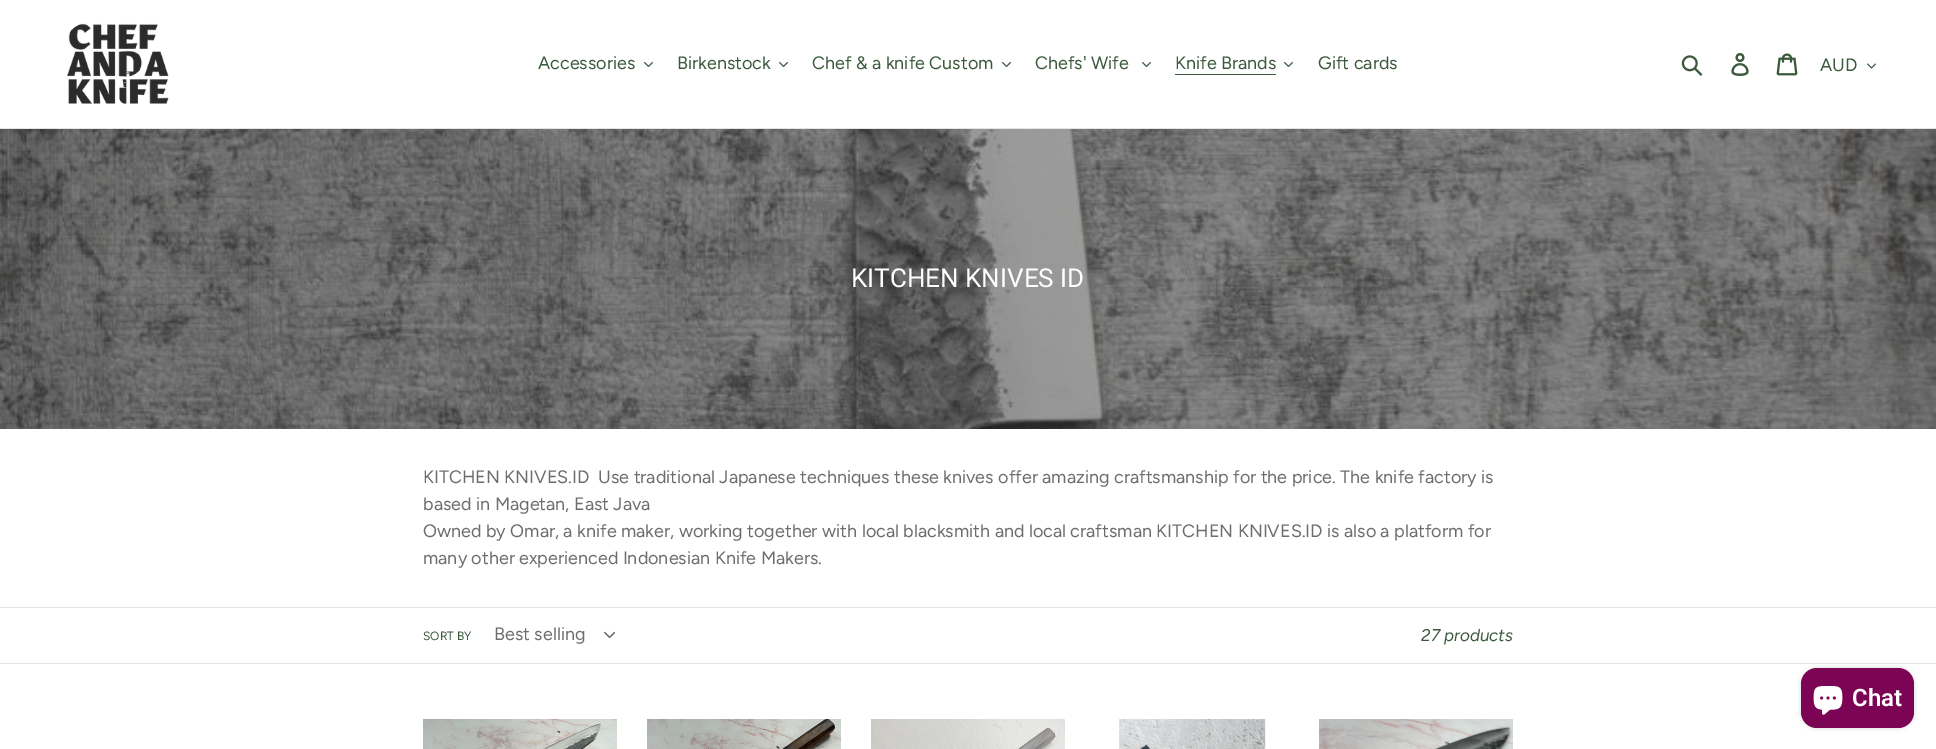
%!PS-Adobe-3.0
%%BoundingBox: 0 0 1936 749
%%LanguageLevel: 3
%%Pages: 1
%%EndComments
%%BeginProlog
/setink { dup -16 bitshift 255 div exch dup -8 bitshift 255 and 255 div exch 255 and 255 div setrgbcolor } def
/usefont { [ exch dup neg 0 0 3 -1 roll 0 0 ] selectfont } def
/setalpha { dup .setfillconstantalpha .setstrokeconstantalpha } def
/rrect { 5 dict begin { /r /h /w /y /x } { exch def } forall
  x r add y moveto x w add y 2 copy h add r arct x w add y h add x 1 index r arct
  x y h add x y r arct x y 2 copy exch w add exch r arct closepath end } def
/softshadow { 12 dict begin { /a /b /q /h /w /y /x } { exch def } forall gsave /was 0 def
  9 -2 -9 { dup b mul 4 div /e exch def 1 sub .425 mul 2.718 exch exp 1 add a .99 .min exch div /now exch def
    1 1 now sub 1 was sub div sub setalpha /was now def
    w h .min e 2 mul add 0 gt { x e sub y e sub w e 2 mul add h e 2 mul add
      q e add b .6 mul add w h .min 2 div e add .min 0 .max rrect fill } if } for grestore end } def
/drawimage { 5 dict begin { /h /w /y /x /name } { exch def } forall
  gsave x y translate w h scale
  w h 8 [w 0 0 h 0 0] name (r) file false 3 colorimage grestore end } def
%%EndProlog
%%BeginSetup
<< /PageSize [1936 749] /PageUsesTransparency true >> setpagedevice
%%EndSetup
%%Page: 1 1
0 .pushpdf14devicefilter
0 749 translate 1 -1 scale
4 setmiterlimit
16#FFFFFF setink
0 0 1936 749 rectfill
16#E4E4E4 setink
0 128 1936 1 rectfill
(img1.raw) 67 23 102 81 drawimage
/Figtree-Regular 18 usefont
16#3B593C setink
538 69 moveto (Accessories) show
(img2.raw) 644 62 9 5 drawimage
677 69 moveto (Birkenstock) show
(img2.raw) 779 62 9 5 drawimage
812 69 moveto (Chef & a knife Custom) show
(img2.raw) 1002 62 9 5 drawimage
1035 69 moveto (Chefs' Wife) show
(img2.raw) 1142 62 9 5 drawimage
1175 69 moveto (Knife Brands) show
1175 74 101 1 rectfill
(img2.raw) 1284 62 9 5 drawimage
1318 69 moveto (Gift cards) show
(img3.raw) 1681 55 22 21 drawimage
(img4.raw) 1731 53 18 23 drawimage
(img5.raw) 1776 53 22 23 drawimage
1820 71 moveto (AUD) show
(img6.raw) 1867 63 9 6 drawimage
(img7.raw) 0 129 1936 300 drawimage
/Roboto-Regular 26 usefont
16#FFFFFF setink
851 287 moveto (KITCHEN KNIVES ID) show
/Figtree-Regular 18 usefont
16#6D6D6D setink
[
    [(KITCHEN KNIVES.ID  Use traditional Japanese techniques these knives offer amazing craftsmanship for the price. The knife factory is) 423 483]
    [(based in Magetan, East Java) 423 510]
    [(Owned by Omar, a knife maker, working together with local blacksmith and local craftsman KITCHEN KNIVES.ID is also a platform for) 423 537]
    [(many other experienced Indonesian Knife Makers.) 423 564]
] { aload pop moveto show } forall
16#E4E4E4 setink
0 607 1936 1 rectfill
0 663 1936 1 rectfill
/Figtree-Regular 12 usefont
16#3B593C setink
423 640 moveto (SORT BY) show
/Figtree-Regular 18 usefont
16#6D6D6D setink
494 640 moveto (Best selling) show
(img8.raw) 604 631 11 8 drawimage
/Figtree-Italic 17 usefont
16#3B593C setink
1421 641 moveto (27 products) show
(img9.raw) 423 719 194 30 drawimage
(img10.raw) 647 719 194 30 drawimage
(img11.raw) 871 719 194 30 drawimage
(img12.raw) 1119 719 147 30 drawimage
(img13.raw) 1319 719 194 30 drawimage
16#000000 setink
1801 668 113 60 16 2.5 0.15 softshadow
16#7B0554 setink
1801 668 113 60 16 rrect fill
(img14.raw) 1813 686 30 29 drawimage
/Roboto-SemiBold 24 usefont
16#FFFFFF setink
1852 706 moveto (Chat) show
.poppdf14devicefilter showpage
%%EOF
